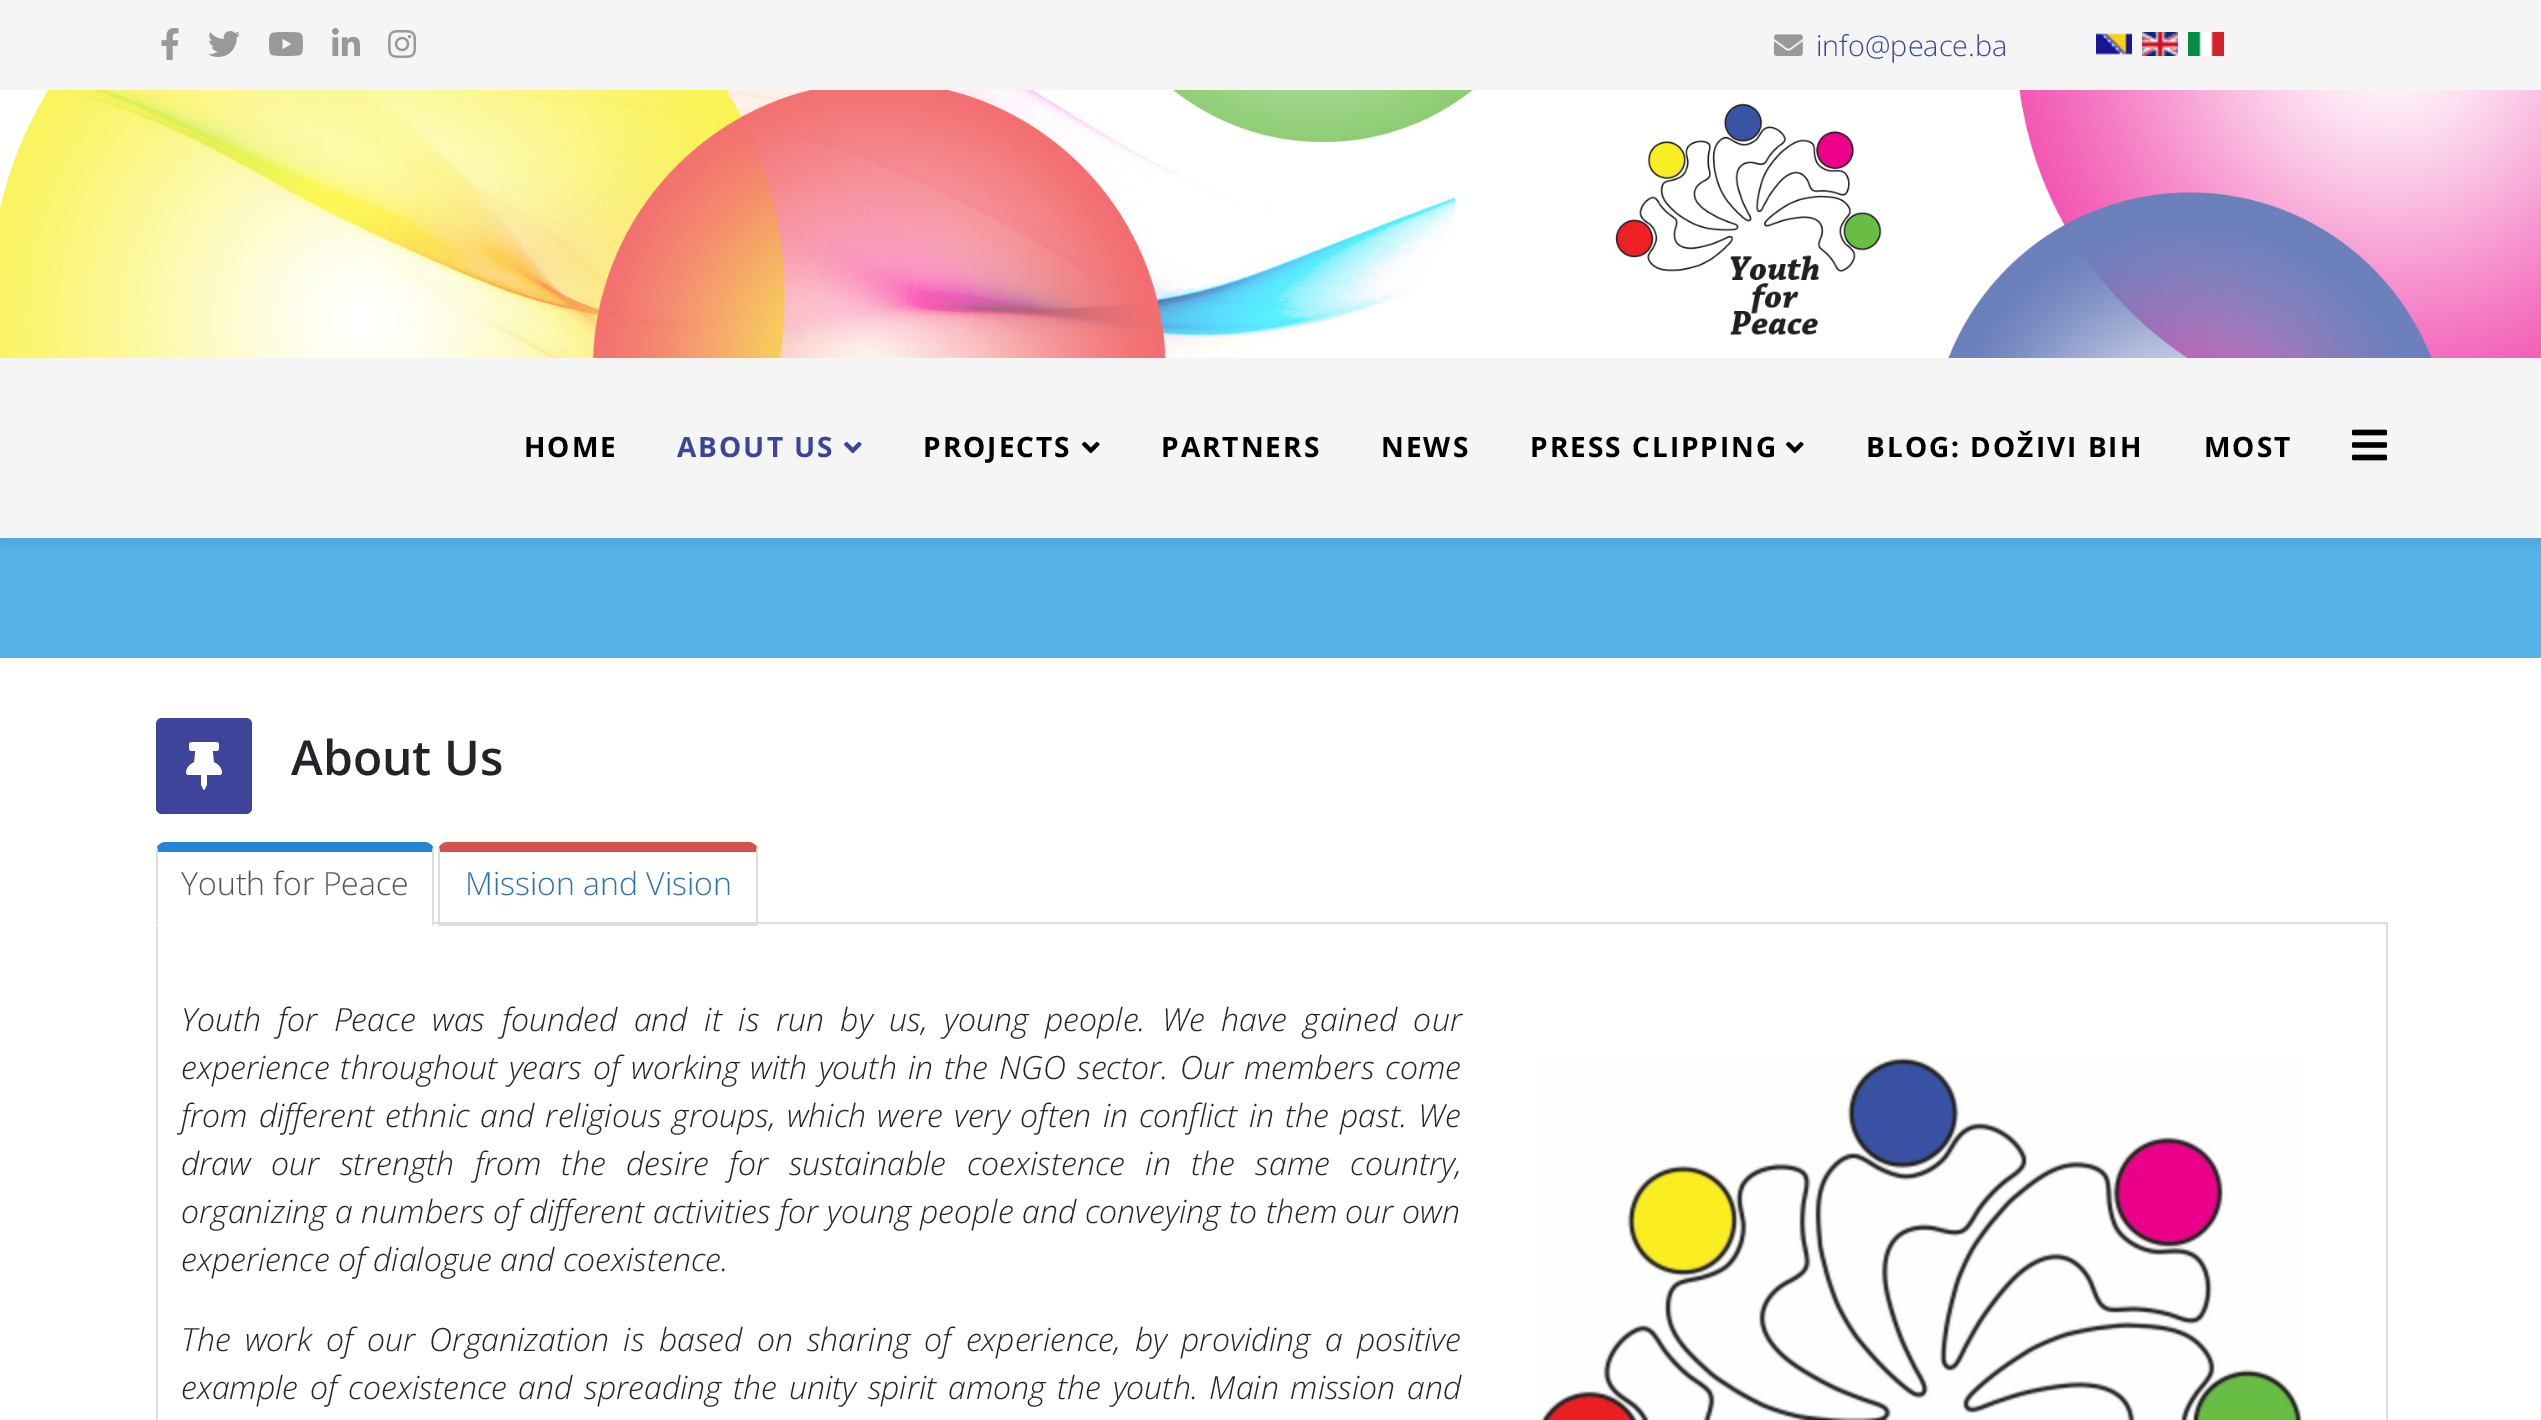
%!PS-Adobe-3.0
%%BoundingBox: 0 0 2541 1420
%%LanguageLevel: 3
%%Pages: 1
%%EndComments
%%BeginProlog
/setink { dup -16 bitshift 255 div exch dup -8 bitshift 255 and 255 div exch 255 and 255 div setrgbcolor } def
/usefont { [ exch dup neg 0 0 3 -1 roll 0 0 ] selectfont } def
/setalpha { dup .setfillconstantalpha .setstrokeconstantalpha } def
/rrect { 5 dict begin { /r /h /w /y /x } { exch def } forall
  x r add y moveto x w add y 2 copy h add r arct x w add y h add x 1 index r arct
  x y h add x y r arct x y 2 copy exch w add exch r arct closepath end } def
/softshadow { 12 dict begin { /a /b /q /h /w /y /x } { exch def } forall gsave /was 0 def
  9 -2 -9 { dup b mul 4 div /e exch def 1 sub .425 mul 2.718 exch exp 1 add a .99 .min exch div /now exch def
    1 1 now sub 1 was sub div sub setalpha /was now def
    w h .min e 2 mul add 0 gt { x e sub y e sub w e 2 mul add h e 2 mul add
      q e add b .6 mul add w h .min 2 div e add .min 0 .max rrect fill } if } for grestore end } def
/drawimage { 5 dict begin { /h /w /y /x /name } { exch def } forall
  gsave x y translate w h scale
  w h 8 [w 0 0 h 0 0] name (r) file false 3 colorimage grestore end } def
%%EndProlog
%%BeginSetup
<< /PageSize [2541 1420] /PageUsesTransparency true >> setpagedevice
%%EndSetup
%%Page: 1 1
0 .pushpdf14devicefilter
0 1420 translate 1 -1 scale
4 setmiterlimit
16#FFFFFF setink
0 0 2541 1420 rectfill
16#F5F5F5 setink
0 0 2541 90 rectfill
(img1.raw) 161 28 18 32 drawimage
(img2.raw) 208 31 32 26 drawimage
(img3.raw) 268 32 36 24 drawimage
(img4.raw) 332 28 28 28 drawimage
(img5.raw) 388 30 29 28 drawimage
(img6.raw) 1774 34 29 22 drawimage
/OpenSans-Light 28.75 usefont
16#3D449A setink
1816 56 moveto (info@peace.ba) show
(img7.raw) 2096 33 36 22 drawimage
(img8.raw) 2142 32 36 24 drawimage
(img9.raw) 2188 32 36 24 drawimage
(img10.raw) 0 90 2541 268 drawimage
16#54B2E8 setink
0 538 2541 120 rectfill
16#000000 setink
0 364 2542 180 0 3 0.05 softshadow
16#F5F5F5 setink
0 358 2541 180 rectfill
/OpenSans-Bold 28 usefont
16#000000 setink
524 457 moveto 2 0 (HOME) ashow
16#3D449A setink
677 457 moveto 2 0 (ABOUT US) ashow
(img11.raw) 844 441 18 13 drawimage
16#000000 setink
923 457 moveto 2 0 (PROJECTS) ashow
(img12.raw) 1082 441 18 13 drawimage
1161 457 moveto 2 0 (PARTNERS) ashow
1381 457 moveto 2 0 (NEWS) ashow
1530 457 moveto 2 0 (PRESS CLIPPING) ashow
(img12.raw) 1786 441 18 13 drawimage
1866 457 moveto 2 0 (BLOG: DOŽIVI BIH) ashow
2204 457 moveto 2 0 (MOST) ashow
(img13.raw) 2352 429 35 32 drawimage
16#3D449A setink
156 718 96 96 6 rrect fill
(img14.raw) 186 742 36 48 drawimage
/OpenSans-SemiBold 48 usefont
16#212529 setink
291 775 moveto (About Us) show
16#DDDDDD setink
434 922 1954 2 rectfill
156 924 moveto 2388 924 lineto 2388 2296 lineto 2388 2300 2384 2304 2380 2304 curveto 164 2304 lineto 160 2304 156 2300 156 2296 curveto closepath 158 924 moveto 2386 924 lineto 2386 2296 lineto 2386 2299 2383 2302 2380 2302 curveto 164 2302 lineto 161 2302 158 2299 158 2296 curveto closepath eofill
16#FFFFFF setink
166 842 moveto 424 842 lineto 429.5 842 434 846.5 434 852 curveto 434 926 lineto 156 926 lineto 156 852 lineto 156 846.5 160.5 842 166 842 curveto closepath fill
16#2384D3 setink
166 842 moveto 162 842 159 844 157 847 curveto 158 852 lineto 432 852 lineto 433 847 lineto 431 844 428 842 424 842 curveto closepath fill
16#DDDDDD setink
434 926 moveto 434 852 lineto 434 850 434 849 433 847 curveto 432 852 lineto 432 924 lineto closepath fill
156 926 moveto 158 924 lineto 158 852 lineto 157 847 lineto 156 852 lineto closepath fill
/OpenSans-Light 32 usefont
16#555555 setink
181 895 moveto (Youth for Peace) show
16#D3534C setink
448 842 moveto 444 842 441 844 439 847 curveto 440 852 lineto 756 852 lineto 757 847 lineto 755 844 752 842 748 842 curveto closepath fill
16#DDDDDD setink
758 926 moveto 758 852 lineto 758 850 758 849 757 847 curveto 756 852 lineto 756 924 lineto closepath fill
758 926 moveto 756 924 lineto 440 924 lineto 438 926 lineto closepath fill
438 926 moveto 440 924 lineto 440 852 lineto 439 847 lineto 438 852 lineto closepath fill
16#3071A9 setink
465 895 moveto (Mission and Vision) show
/OpenSans-LightItalic 32 usefont
16#212529 setink
181 1031 moveto 8.25 0 32 (Youth for Peace was founded and it is run by us, young people. We have gained our) widthshow
181 1079 moveto 2.75 0 32 (experience throughout years of working with youth in the NGO sector. Our members come) widthshow
(img15.raw) 1538 1057 765 363 drawimage
181 1127 moveto 2.75 0 32 (from different ethnic and religious groups, which were very often in conflict in the past. We) widthshow
181 1175 moveto 12 0 32 (draw our strength from the desire for sustainable coexistence in the same country,) widthshow
181 1223 moveto 0.25 0 32 (organizing a numbers of different activities for young people and conveying to them our own) widthshow
181 1271 moveto (experience of dialogue and coexistence.) show
181 1351 moveto 5.9 0 32 (The work of our Organization is based on sharing of experience, by providing a positive) widthshow
181 1399 moveto 3.25 0 32 (example of coexistence and spreading the unity spirit among the youth. Main mission and) widthshow
.poppdf14devicefilter showpage
%%EOF
